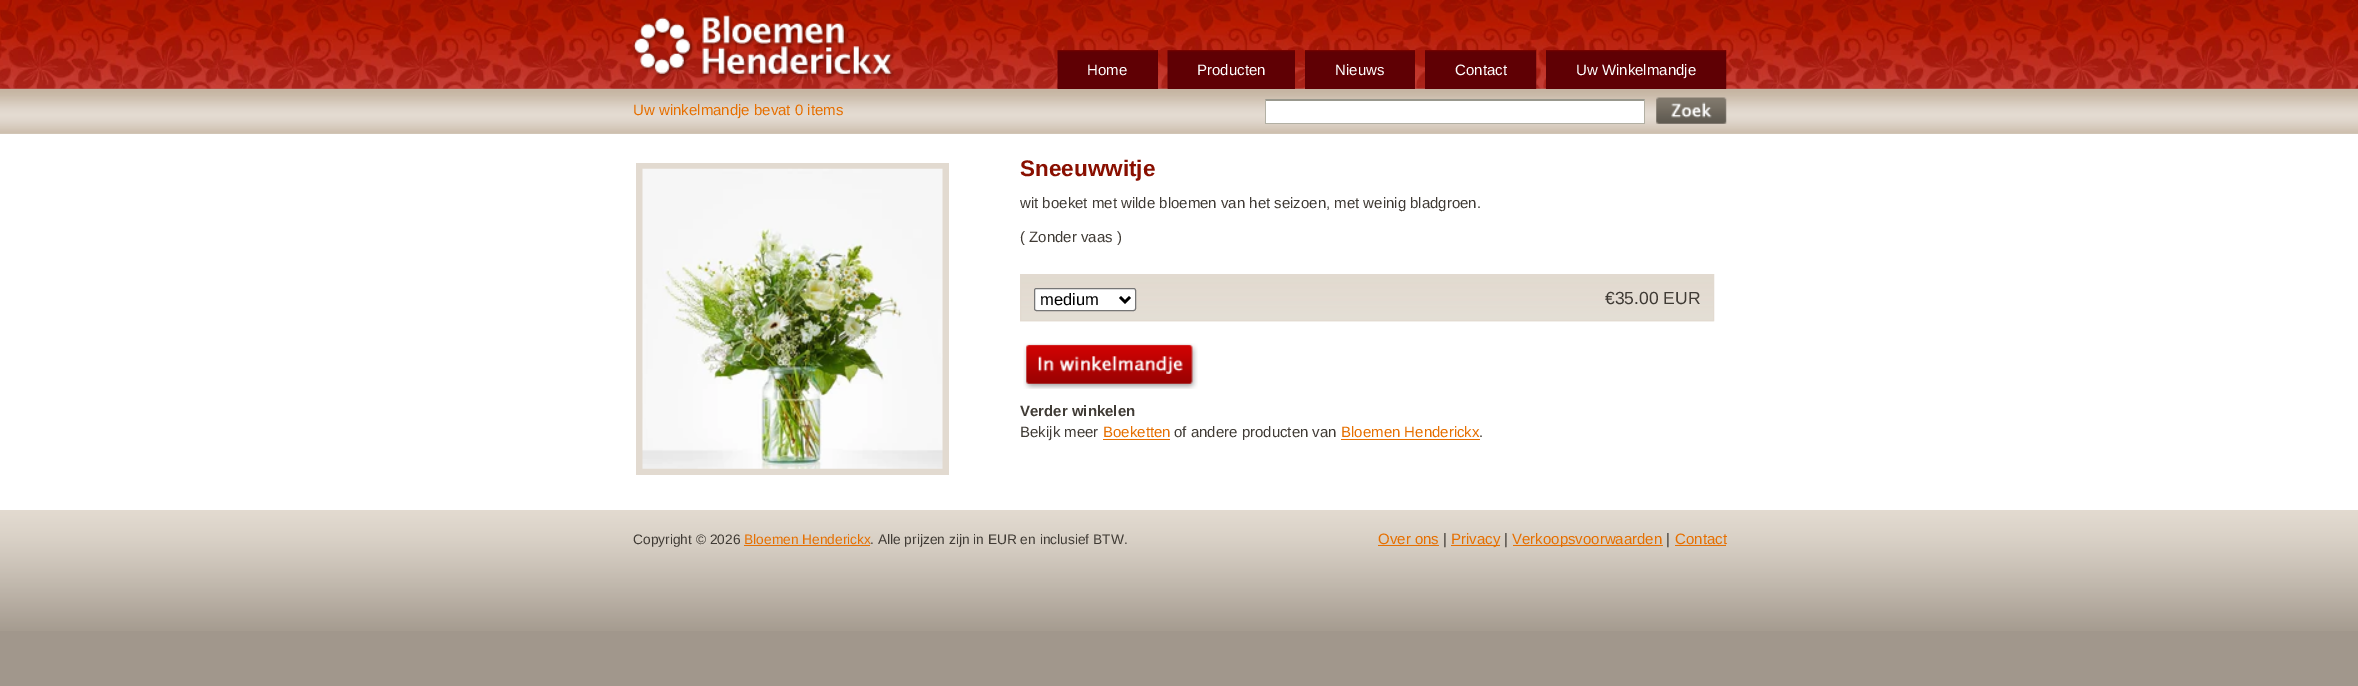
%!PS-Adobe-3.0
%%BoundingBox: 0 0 2358 686
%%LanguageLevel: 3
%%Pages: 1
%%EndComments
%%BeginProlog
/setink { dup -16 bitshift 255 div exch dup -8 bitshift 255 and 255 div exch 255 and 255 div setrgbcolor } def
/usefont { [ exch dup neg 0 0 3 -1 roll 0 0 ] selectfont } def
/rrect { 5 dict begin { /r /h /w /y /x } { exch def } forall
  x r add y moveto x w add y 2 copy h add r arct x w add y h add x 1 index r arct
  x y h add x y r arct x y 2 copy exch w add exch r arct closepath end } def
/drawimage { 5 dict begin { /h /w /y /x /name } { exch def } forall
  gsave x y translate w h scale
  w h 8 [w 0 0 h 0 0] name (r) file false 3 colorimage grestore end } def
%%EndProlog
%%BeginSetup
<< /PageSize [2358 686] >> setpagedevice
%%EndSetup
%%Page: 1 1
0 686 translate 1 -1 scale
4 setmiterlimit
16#A1978C setink
0 0 2358 686 rectfill
(img1.raw) 0 0 2358 89 drawimage
(img2.raw) 633 14 261 65 drawimage
(img8.raw) 0 88 2358 46 drawimage
16#5F0004 setink
1058 50 100 39 rectfill
(img3.raw) 1057 50 101 39 drawimage
/LiberationSans-Regular 15 usefont
16#FFFFFF setink
1087 75 moveto (Home) show
(img4.raw) 1167 50 128 39 drawimage
1197 75 moveto (Producten) show
16#5F0004 setink
1305 52 110 37 rectfill
(img5.raw) 1305 50 110 2 drawimage
16#FFFFFF setink
1335 75 moveto (Nieuws) show
(img6.raw) 1425 50 112 39 drawimage
1455 75 moveto (Contact) show
16#5F0004 setink
1546 50 180 39 rectfill
(img7.raw) 1546 50 181 39 drawimage
16#FFFFFF setink
1576 75 moveto (Uw Winkelmandje) show
16#E66F00 setink
633 115 moveto (Uw winkelmandje bevat 0 items) show
16#FFFFFF setink
1266 101 378 22 rectfill
16#99988D setink
1265 99 moveto 1645 99 lineto 1644 101 lineto 1266 101 lineto closepath fill
16#B2B0A4 setink
1645 99 moveto 1645 124 lineto 1644 122.5 lineto 1644 101 lineto closepath fill
1265 123 380 1 rectfill
1265 124 moveto 1265 99 lineto 1266 101 lineto 1266 122.5 lineto closepath fill
(img9.raw) 1656 97 71 27 drawimage
16#FFFFFF setink
0 134 2358 376 rectfill
16#E2DAD0 setink
636 163 313 312 rectfill
(img10.raw) 642 168 301 301 drawimage
/LiberationSans-Bold 22.5 usefont
16#890F00 setink
1020 176 moveto (Sneeuwwitje) show
/LiberationSans-Regular 15 usefont
16#403B35 setink
1020 208 moveto (wit boeket met wilde bloemen van het seizoen, met weinig bladgroen.) show
1020 242 moveto (\( Zonder vaas \)) show
(img11.raw) 1020 275 694 47 drawimage
16#E2DAD0 setink
1020.5 274.5 693 46 rectstroke
16#FFFFFF setink
1034.5 288.5 101 22 2 rrect gsave fill grestore
16#767676 setink
stroke
16#000000 setink
2.5 setlinewidth
1120 297 moveto 1125 302 lineto 1130 297 lineto stroke
/LiberationSans-Regular 16.5 usefont
1040 305 moveto (medium) show
/LiberationSans-Regular 17.5 usefont
16#403B35 setink
1605 304 moveto (€35.00 EUR) show
(img12.raw) 1023 343 175 46 drawimage
/LiberationSans-Bold 15 usefont
1020 416 moveto (Verder winkelen) show
/LiberationSans-Regular 15 usefont
1020 437 moveto (Bekijk meer) show
16#E66F00 setink
1103 437 moveto (Boeketten) show
1103 439 67 1 rectfill
16#403B35 setink
1174 437 moveto (of andere producten van) show
16#E66F00 setink
1341 437 moveto (Bloemen Henderickx) show
1341 439 139 1 rectfill
16#403B35 setink
1479 437 moveto (.) show
(img13.raw) 0 510 2358 121 drawimage
/LiberationSans-Regular 13.75 usefont
633 544 moveto (Copyright © 2026) show
16#E66F00 setink
744 544 moveto (Bloemen Henderickx) show
16#403B35 setink
870 544 moveto (. Alle prijzen zijn in EUR en inclusief BTW.) show
16#E66F00 setink
744 545 126 1 rectfill
/LiberationSans-Regular 15 usefont
1378 544 moveto (Over ons) show
1378 545 61 1 rectfill
16#403B35 setink
1443 544 moveto (|) show
16#E66F00 setink
1451 545 49 1 rectfill
1451 544 moveto (Privacy) show
16#403B35 setink
1504 544 moveto (|) show
16#E66F00 setink
1513 545 150 1 rectfill
1512 544 moveto (Verkoopsvoorwaarden) show
16#403B35 setink
1666 544 moveto (|) show
16#E66F00 setink
1675 544 moveto (Contact) show
1675 545 51 1 rectfill
showpage
%%EOF
